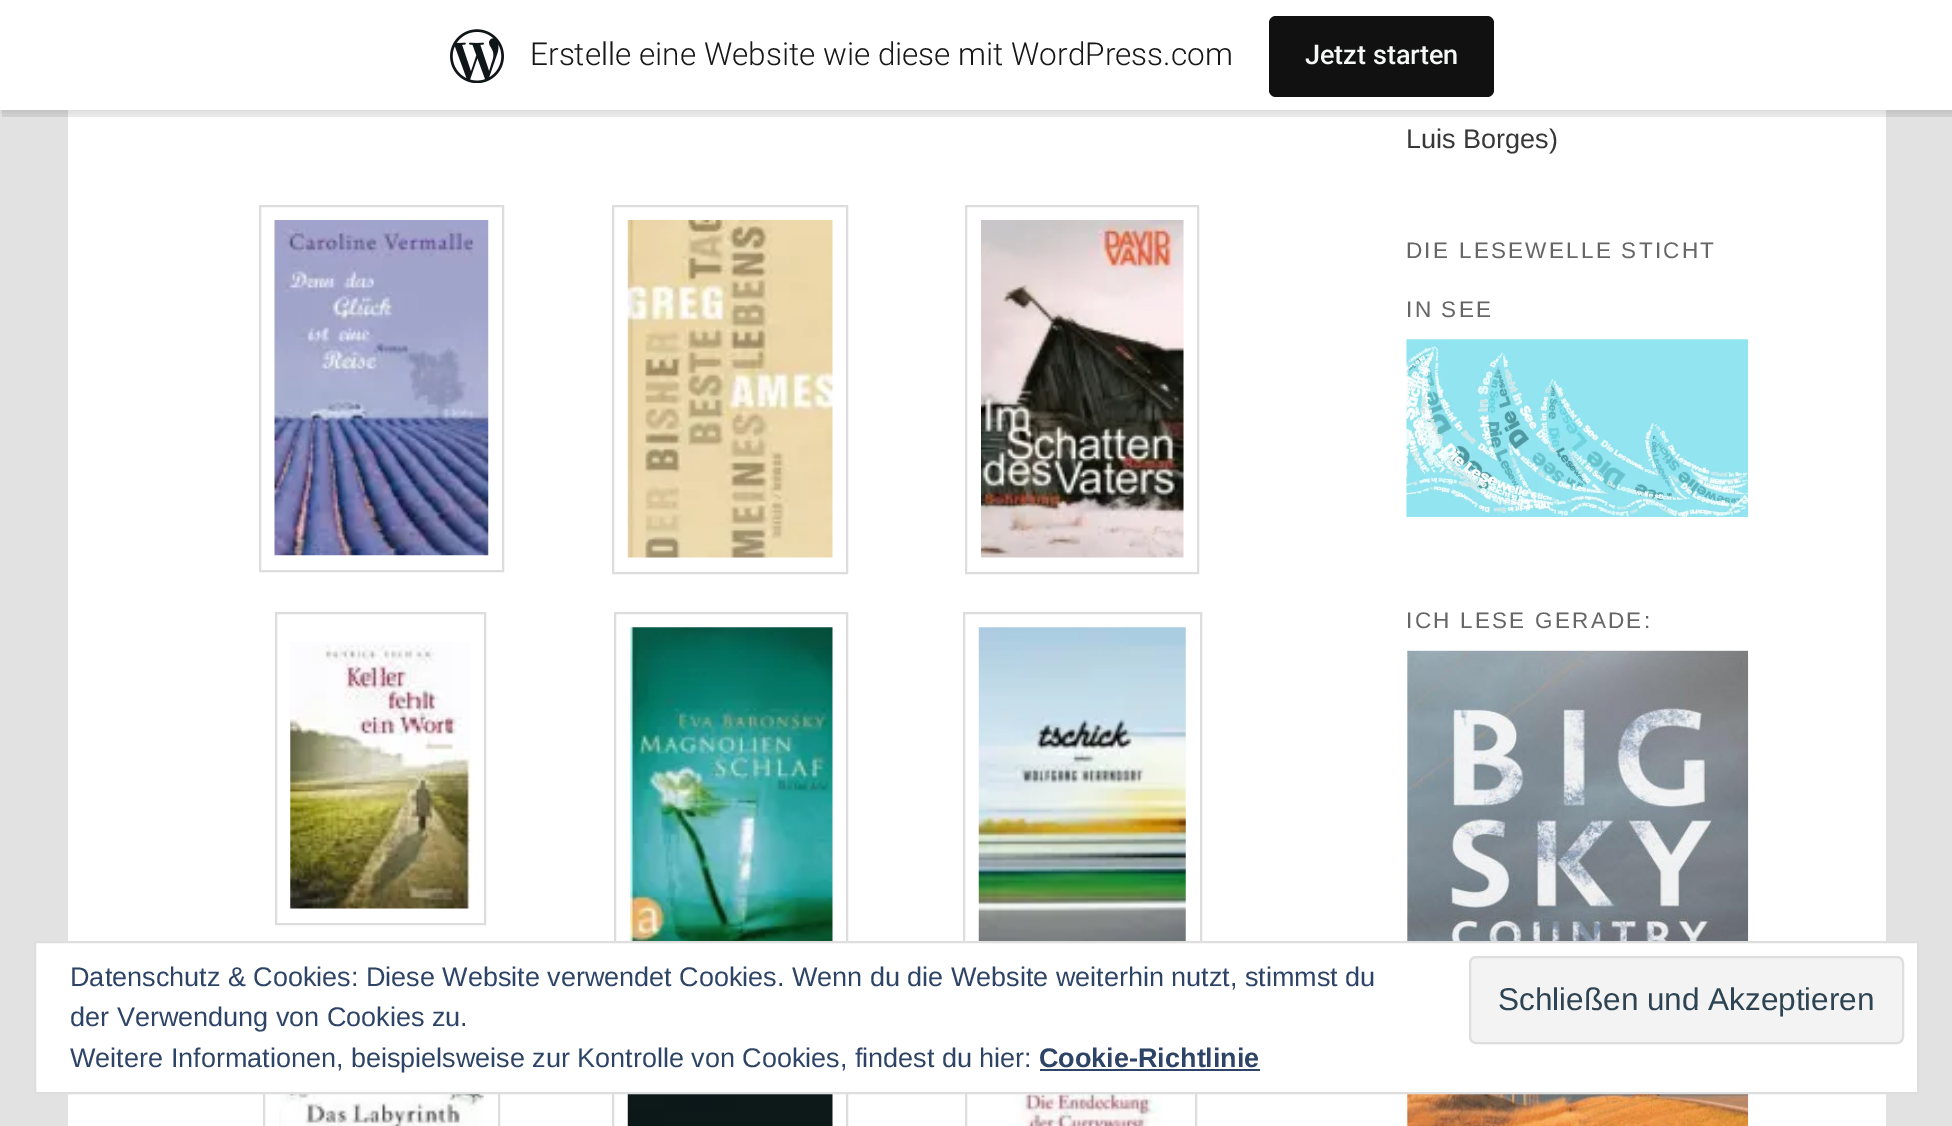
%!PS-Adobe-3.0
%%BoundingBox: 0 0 1952 1126
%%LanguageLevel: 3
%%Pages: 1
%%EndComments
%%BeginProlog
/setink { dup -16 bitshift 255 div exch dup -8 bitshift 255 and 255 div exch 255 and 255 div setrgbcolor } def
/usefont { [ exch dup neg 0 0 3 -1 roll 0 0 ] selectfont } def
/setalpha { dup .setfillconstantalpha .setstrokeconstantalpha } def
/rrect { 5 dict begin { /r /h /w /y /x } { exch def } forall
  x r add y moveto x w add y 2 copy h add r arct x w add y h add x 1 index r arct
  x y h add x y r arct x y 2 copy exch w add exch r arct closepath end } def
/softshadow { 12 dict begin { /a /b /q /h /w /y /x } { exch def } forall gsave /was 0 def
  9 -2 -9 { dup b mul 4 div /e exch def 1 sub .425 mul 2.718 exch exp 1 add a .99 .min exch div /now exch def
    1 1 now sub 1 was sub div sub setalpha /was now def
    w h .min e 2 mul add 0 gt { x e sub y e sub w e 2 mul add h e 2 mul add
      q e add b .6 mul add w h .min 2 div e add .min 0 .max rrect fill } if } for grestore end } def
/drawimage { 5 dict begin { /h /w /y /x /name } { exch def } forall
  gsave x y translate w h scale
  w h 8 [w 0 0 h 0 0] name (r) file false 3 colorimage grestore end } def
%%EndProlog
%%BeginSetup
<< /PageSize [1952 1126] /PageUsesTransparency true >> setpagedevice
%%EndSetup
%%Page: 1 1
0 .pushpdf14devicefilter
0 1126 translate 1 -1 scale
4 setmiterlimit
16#E2E2E2 setink
0 0 1952 1126 rectfill
16#FFFFFF setink
68 110 1818 1016 rectfill
16#000000 setink
0 2 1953 111 0 2 0.05 softshadow
0.08 setalpha
2 110 moveto 2 117 lineto 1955 117 lineto 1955 7 lineto 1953 7 lineto 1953 110 lineto closepath fill
1 setalpha
16#FFFFFF setink
0 0 1952 110 rectfill
(img1.raw) 450 29 54 54 drawimage
/Roboto-Light 31.5 usefont
16#171717 setink
530 65 moveto (Erstelle eine Website wie diese mit WordPress.com) show
16#111111 setink
1269 16 225 81 7 rrect fill
/Roboto-Medium 27 usefont
16#F6F7F7 setink
1305 64 moveto (Jetzt starten) show
16#DDDDDD setink
2 setlinewidth
260 206 243 365 rectstroke
(img2.raw) 274 220 215 336 drawimage
613 206 234 367 rectstroke
(img3.raw) 627 220 206 338 drawimage
966 206 232 367 rectstroke
(img4.raw) 981 220 203 338 drawimage
276 613 209 311 rectstroke
(img5.raw) 290 642 181 267 drawimage
615 613 232 365 rectstroke
(img6.raw) 630 627 203 314 drawimage
964 613 237 372 rectstroke
(img7.raw) 978 627 208 314 drawimage
264 1025 235 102 rectstroke
(img8.raw) 279 1094 205 32 drawimage
613 1025 234 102 rectstroke
(img9.raw) 627 1094 206 32 drawimage
966 1025 230 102 rectstroke
(img10.raw) 1016 1094 146 32 drawimage
/LiberationSans-Regular 27 usefont
16#373737 setink
1406 148 moveto (Luis Borges\)) show
/LiberationSans-Regular 22.5 usefont
16#666666 setink
1406 258 moveto 2.25 0 (DIE LESEWELLE STICHT) ashow
1406 317 moveto 2.25 0 (IN SEE) ashow
(img11.raw) 1406 339 343 178 drawimage
1406 628 moveto 2.25 0 (ICH LESE GERADE:) ashow
(img12.raw) 1406 650 343 476 drawimage
16#FFFFFF setink
35 942 moveto 1918 942 lineto 1918 1093 lineto 35 1093 lineto closepath gsave fill grestore
16#DEDEDE setink
stroke
/LiberationSans-Regular 27 usefont
16#2E4467 setink
70 986 moveto (Datenschutz & Cookies: Diese Website verwendet Cookies. Wenn du die Website weiterhin nutzt, stimmst du) show
70 1026 moveto (der Verwendung von Cookies zu.) show
16#F3F3F3 setink
1470 957 433 86 6 rrect gsave fill grestore
16#DEDEDE setink
stroke
/LiberationSans-Regular 31.5 usefont
16#2E4453 setink
1498 1010 moveto (Schließen und Akzeptieren) show
/LiberationSans-Regular 27 usefont
16#2E4467 setink
70 1067 moveto (Weitere Informationen, beispielsweise zur Kontrolle von Cookies, findest du hier:) show
/LiberationSans-Bold 27 usefont
1039 1067 moveto (Cookie-Richtlinie) show
1040 1069 220 2 rectfill
.poppdf14devicefilter showpage
%%EOF
